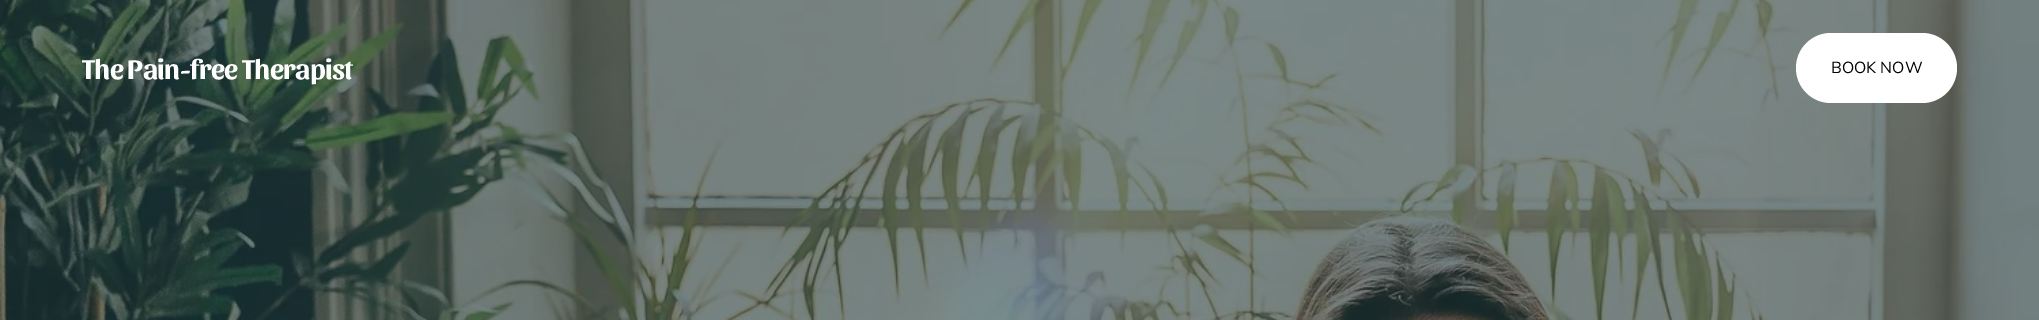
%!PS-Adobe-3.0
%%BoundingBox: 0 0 2039 320
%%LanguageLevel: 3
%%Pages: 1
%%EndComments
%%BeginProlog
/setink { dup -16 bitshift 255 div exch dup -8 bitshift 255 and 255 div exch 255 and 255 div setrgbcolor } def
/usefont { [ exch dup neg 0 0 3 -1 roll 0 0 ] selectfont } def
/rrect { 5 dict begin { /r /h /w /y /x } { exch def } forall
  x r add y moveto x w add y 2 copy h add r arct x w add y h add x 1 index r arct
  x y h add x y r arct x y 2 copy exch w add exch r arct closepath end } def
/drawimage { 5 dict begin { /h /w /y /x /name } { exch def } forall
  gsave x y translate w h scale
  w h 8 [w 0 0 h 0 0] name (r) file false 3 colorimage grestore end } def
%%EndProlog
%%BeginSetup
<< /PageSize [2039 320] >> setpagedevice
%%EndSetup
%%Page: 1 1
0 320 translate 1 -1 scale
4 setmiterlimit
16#FFFFFF setink
0 0 2039 320 rectfill
(img1.raw) 0 0 2039 320 drawimage
/Sansita-Bold 28.25 usefont
82 79 moveto -0.6 0 (The Pain-free Therapist) ashow
1796 33 161 70 35 rrect fill
/NunitoSans-Regular 16 usefont
16#000000 setink
1831 73 moveto (BOOK NOW) show
showpage
%%EOF
